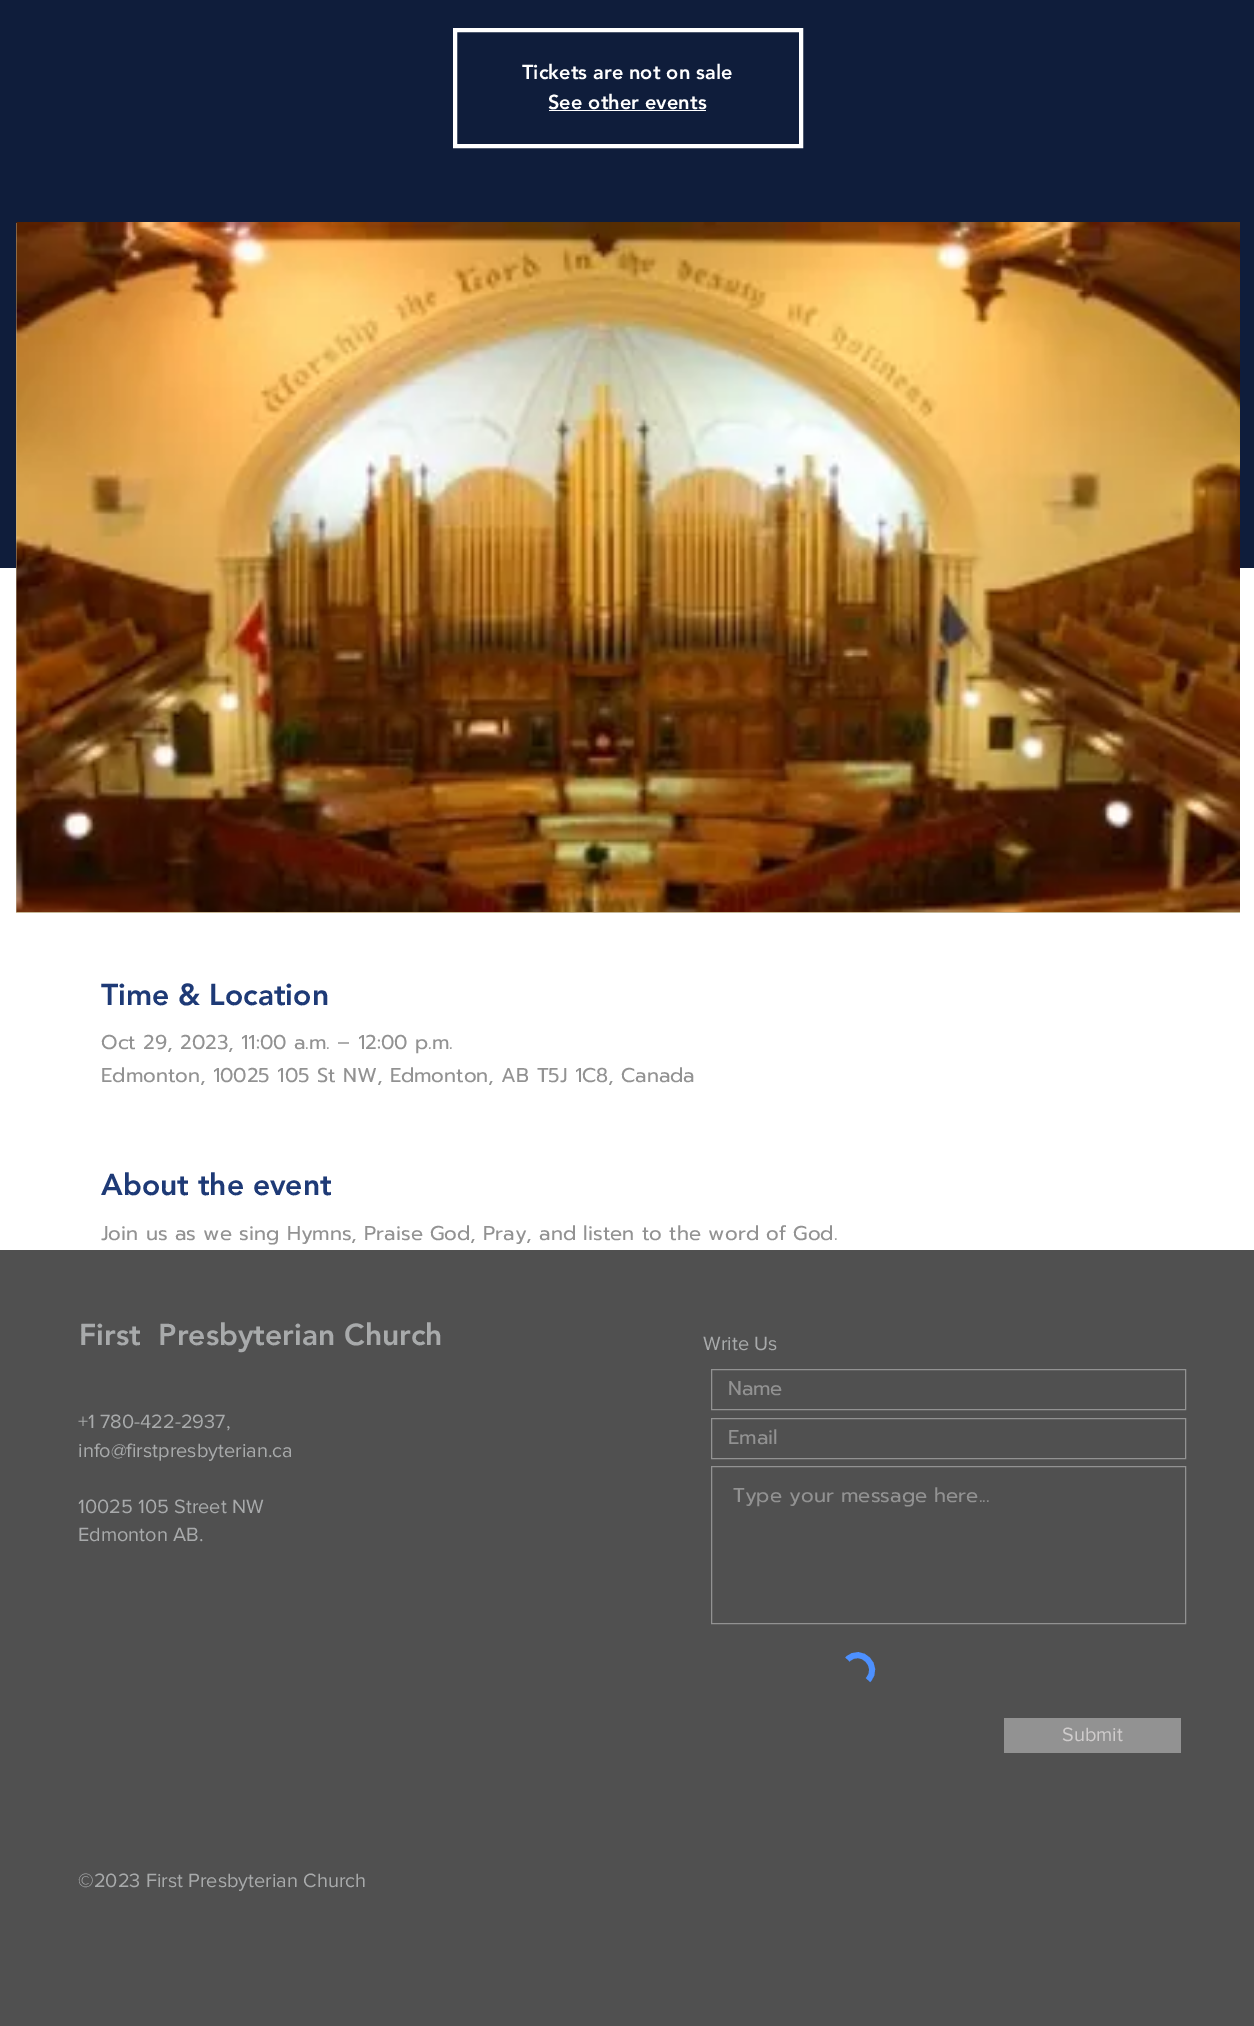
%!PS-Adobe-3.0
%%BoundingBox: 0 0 1254 2026
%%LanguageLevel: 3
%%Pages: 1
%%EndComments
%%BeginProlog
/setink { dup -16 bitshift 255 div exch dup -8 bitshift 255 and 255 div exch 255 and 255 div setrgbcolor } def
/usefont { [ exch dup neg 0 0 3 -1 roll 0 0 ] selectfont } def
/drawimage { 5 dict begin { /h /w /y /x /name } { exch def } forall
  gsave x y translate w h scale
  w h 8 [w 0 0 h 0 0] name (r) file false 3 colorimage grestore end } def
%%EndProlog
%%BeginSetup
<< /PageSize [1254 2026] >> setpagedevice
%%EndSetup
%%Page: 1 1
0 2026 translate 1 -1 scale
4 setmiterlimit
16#FFFFFF setink
0 0 1254 2026 rectfill
16#0F1D3B setink
0 0 1254 568 rectfill
16#FFFFFF setink
4 setlinewidth
455 30 346 116 rectstroke
/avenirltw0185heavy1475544-Black 20 usefont
522 79 moveto (Tickets are not on sale) show
548 109 moveto (See other events) show
549 110 157 1 rectfill
16#C6B795 setink
16 223 1224 690 rectfill
(img1.raw) 16 222 1224 690 drawimage
/avenirltw0185heavy1475544-Black 30 usefont
16#1E3A76 setink
101 1005 moveto (Time & Location) show
/Prompt-Regular 20 usefont
16#929292 setink
101 1049 moveto (Oct 29, 2023, 11:00 a.m. – 12:00 p.m.) show
101 1082 moveto (Edmonton, 10025 105 St NW, Edmonton, AB T5J 1C8, Canada) show
/avenirltw0185heavy1475544-Black 30 usefont
16#1E3A76 setink
101 1195 moveto (About the event) show
/Prompt-Regular 20 usefont
16#929292 setink
101 1240 moveto (Join us as we sing Hymns, Praise God, Pray, and listen to the word of God.) show
16#505050 setink
0 1250 1254 776 rectfill
/avenirltw0185heavy1475544-Black 30 usefont
16#A8AAAB setink
79 1345 moveto (First  Presbyterian Church) show
/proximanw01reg-Regular 20 usefont
[
    [(Write Us) 703 1350]
    [(+1 780-422-2937,) 78 1428]
    [(info@firstpresbyterian.ca) 78 1457]
    [(10025 105 Street NW) 78 1513]
    [(Edmonton AB.) 78 1541]
] { aload pop moveto show } forall
16#929292 setink
1 setlinewidth
711.5 1369.5 474 40 rectstroke
/Prompt-Regular 20 usefont
728 1395 moveto (Name) show
711.5 1418.5 474 40 rectstroke
728 1444 moveto (Email) show
711.5 1466.5 474 157 rectstroke
733 1502 moveto (Type your message here...) show
16#4D90FE setink
5.8 setlinewidth
847.5 1659.5 moveto 861 1646 881 1666.5 868 1680 curveto stroke
16#929292 setink
1004 1718 177 35 rectfill
/proximanw01reg-Regular 20 usefont
16#CFCCCC setink
1062 1741 moveto (Submit) show
16#A8AAAB setink
78 1887 moveto (©2023 First Presbyterian Church) show
showpage
%%EOF
